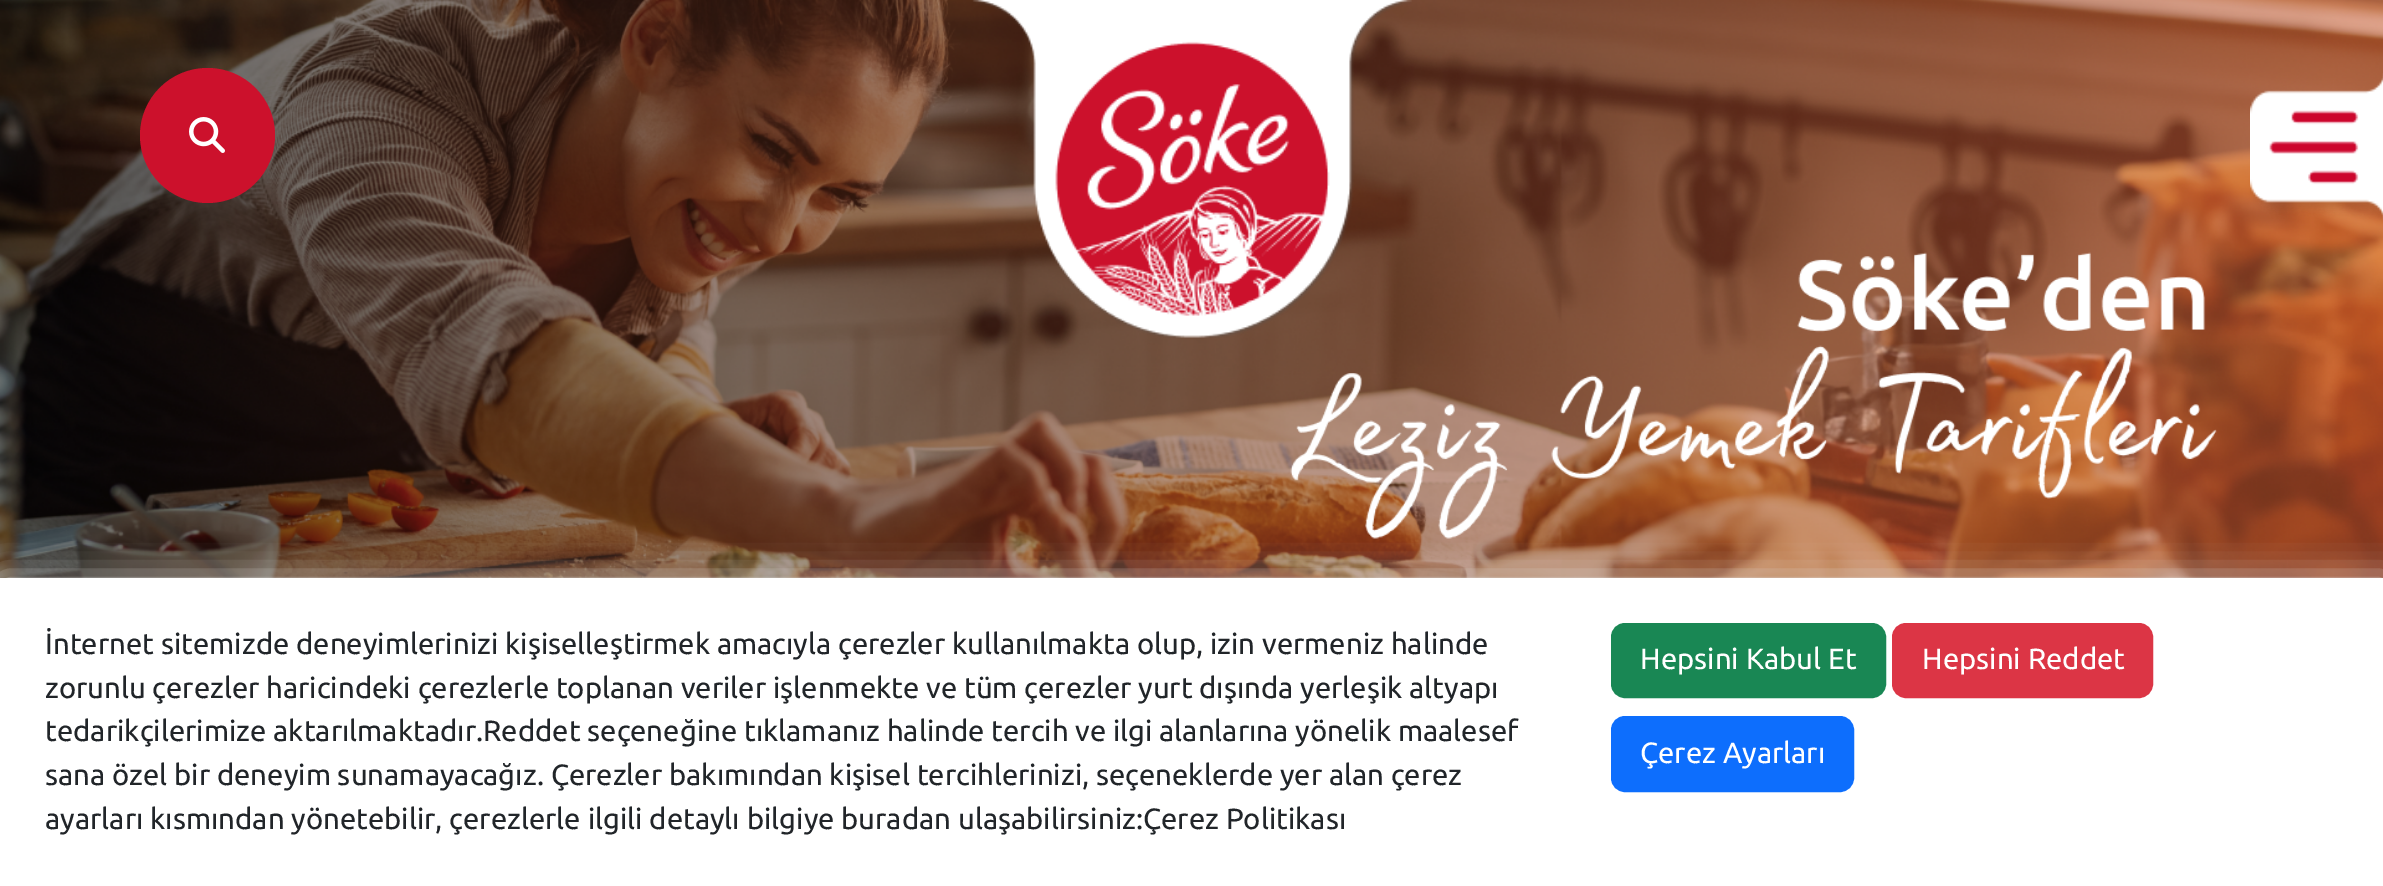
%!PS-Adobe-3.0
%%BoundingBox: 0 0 2383 886
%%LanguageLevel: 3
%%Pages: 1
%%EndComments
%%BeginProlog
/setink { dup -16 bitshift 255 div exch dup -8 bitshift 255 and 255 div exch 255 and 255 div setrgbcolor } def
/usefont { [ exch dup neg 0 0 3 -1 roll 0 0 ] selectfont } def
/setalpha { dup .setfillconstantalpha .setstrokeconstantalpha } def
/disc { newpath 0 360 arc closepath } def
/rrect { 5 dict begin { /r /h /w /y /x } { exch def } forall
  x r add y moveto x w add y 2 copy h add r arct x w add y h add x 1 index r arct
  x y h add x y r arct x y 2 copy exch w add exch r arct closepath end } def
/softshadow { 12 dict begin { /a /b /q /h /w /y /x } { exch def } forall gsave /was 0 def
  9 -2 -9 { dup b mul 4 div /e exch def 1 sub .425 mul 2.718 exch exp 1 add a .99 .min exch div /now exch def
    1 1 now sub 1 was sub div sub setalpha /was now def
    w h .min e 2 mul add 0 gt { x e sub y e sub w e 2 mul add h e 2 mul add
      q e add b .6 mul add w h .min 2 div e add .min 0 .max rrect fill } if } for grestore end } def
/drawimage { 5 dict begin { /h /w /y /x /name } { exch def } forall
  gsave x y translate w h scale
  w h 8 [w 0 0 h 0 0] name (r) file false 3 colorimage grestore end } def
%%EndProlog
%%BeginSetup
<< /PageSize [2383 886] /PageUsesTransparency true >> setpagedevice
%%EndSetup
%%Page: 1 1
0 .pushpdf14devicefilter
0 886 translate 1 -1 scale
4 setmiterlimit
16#FFFFFF setink
0 0 2383 886 rectfill
(img1.raw) 0 0 2383 578 drawimage
16#CC112C setink
207.5 135.5 67.5 disc fill
(img2.raw) 189 117 36 36 drawimage
(img3.raw) 972 0 440 338 drawimage
(img4.raw) 2250 73 133 147 drawimage
16#DDDDDD setink
2 581 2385 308 0 17 1 softshadow
16#FFFFFF setink
0 578 2383 308 rectfill
/Ubuntu-Regular 29.25 usefont
16#212529 setink
[
    [(İnternet sitemizde deneyimlerinizi kişiselleştirmek amacıyla çerezler kullanılmakta olup, izin vermeniz halinde) 45 654]
    [(zorunlu çerezler haricindeki çerezlerle toplanan veriler işlenmekte ve tüm çerezler yurt dışında yerleşik altyapı) 45 698]
    [(tedarikçilerimize aktarılmaktadır.Reddet seçeneğine tıklamanız halinde tercih ve ilgi alanlarına yönelik maalesef) 45 741]
    [(sana özel bir deneyim sunamayacağız. Çerezler bakımından kişisel tercihlerinizi, seçeneklerde yer alan çerez) 45 785]
    [(ayarları kısmından yönetebilir, çerezlerle ilgili detaylı bilgiye buradan ulaşabilirsiniz:Çerez Politikası) 45 829]
] { aload pop moveto show } forall
16#198754 setink
1612 624 273 73 13 rrect gsave fill grestore
2 setlinewidth
stroke
16#FFFFFF setink
1640 669 moveto (Hepsini Kabul Et) show
16#DC3545 setink
1893 624 259 73 13 rrect gsave fill grestore
stroke
16#FFFFFF setink
1922 669 moveto (Hepsini Reddet) show
16#0D6EFD setink
1612 717 241 74 13 rrect gsave fill grestore
stroke
16#FFFFFF setink
1640 763 moveto (Çerez Ayarları) show
.poppdf14devicefilter showpage
%%EOF
